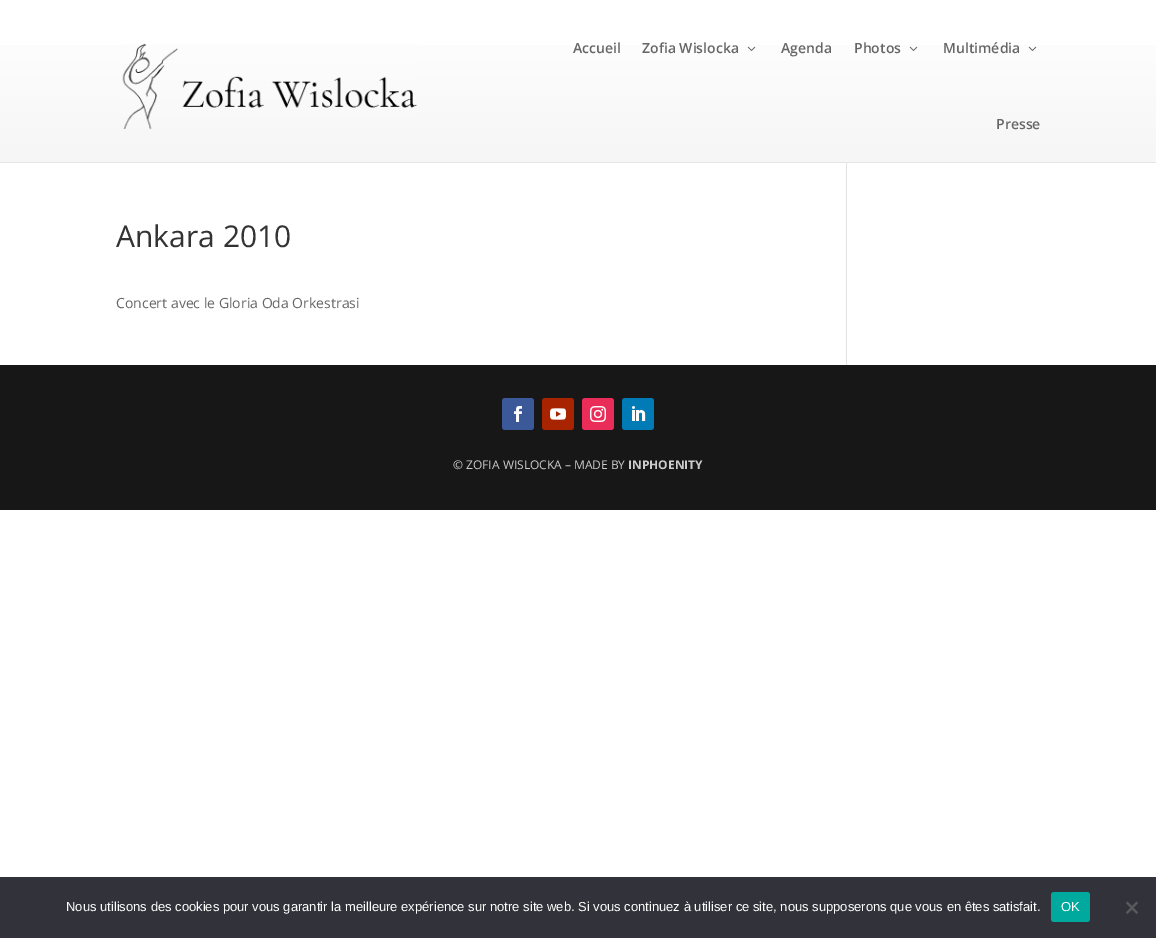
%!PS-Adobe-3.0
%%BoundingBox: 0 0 1156 938
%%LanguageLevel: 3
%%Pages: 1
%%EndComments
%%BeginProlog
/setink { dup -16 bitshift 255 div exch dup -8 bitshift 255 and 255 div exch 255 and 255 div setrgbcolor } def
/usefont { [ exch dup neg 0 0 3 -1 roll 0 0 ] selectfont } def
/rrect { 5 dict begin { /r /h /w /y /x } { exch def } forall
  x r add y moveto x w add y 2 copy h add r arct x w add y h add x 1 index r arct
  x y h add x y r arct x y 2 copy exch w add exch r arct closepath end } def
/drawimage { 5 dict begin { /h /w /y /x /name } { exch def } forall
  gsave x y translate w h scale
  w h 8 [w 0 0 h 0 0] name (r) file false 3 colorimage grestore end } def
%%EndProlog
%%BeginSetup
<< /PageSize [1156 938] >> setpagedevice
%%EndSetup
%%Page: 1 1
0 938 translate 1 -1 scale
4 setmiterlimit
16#FFFFFF setink
0 0 1156 938 rectfill
gsave 0 45 moveto 1156 45 lineto 1156 162 lineto 0 162 lineto closepath clip newpath
<< /ShadingType 2 /ColorSpace /DeviceRGB /Coords [578 0 578 162] /Extend [true true] /Function << /FunctionType 2 /Domain [0 1] /C0 [1 1 1] /C1 [0.965 0.965 0.965] /N 1 >> >> shfill grestore
16#E5E5E5 setink
0 162 1156 1 rectfill
(img1.raw) 122 44 295 85 drawimage
/OpenSans-SemiBold 14 usefont
16#666666 setink
573 53 moveto (Accueil) show
642 53 moveto (Zofia Wislocka) show
(img2.raw) 747 46 9 5 drawimage
781 53 moveto (Agenda) show
854 53 moveto (Photos) show
(img2.raw) 909 46 9 5 drawimage
943 53 moveto (Multimédia) show
(img2.raw) 1028 46 9 5 drawimage
996 129 moveto (Presse) show
/OpenSans-Regular 30 usefont
16#333333 setink
116 247 moveto (Ankara 2010) show
/OpenSans-Regular 14 usefont
16#666666 setink
116 308 moveto (Concert avec le Gloria Oda Orkestrasi) show
16#E2E2E2 setink
846 163 1 202 rectfill
16#171717 setink
0 365 1156 145 rectfill
16#3B5998 setink
502 398 32 32 3 rrect fill
(img3.raw) 514 406 8 16 drawimage
16#A82400 setink
542 398 32 32 3 rrect fill
(img4.raw) 550 408 16 12 drawimage
16#EA2C59 setink
582 398 32 32 3 rrect fill
(img5.raw) 590 406 16 16 drawimage
16#007BB6 setink
622 398 32 32 3 rrect fill
(img6.raw) 632 406 14 15 drawimage
/OpenSans-Regular 12 usefont
16#CCCCCC setink
453 469 moveto (© ZOFIA WISLOCKA – MADE BY) show
/OpenSans-Bold 12 usefont
628 469 moveto (INPHOENITY) show
16#32323A setink
0 877 1156 61 rectfill
/LiberationSans-Regular 13 usefont
16#FFFFFF setink
66 911 moveto (Nous utilisons des cookies pour vous garantir la meilleure expérience sur notre site web. Si vous continuez à utiliser ce site, nous supposerons que vous en êtes satisfait.) show
16#00A99D setink
1051 892 39 30 3 rrect fill
16#FFFFFF setink
1061 911 moveto (OK) show
16#59595D setink
1136.5 901.5 moveto 1138 903 lineto 1127.5 914 lineto 1126 912.5 lineto closepath fill
1126 903 moveto 1127.5 901.5 lineto 1138 912.5 lineto 1136.5 914 lineto closepath fill
showpage
%%EOF
